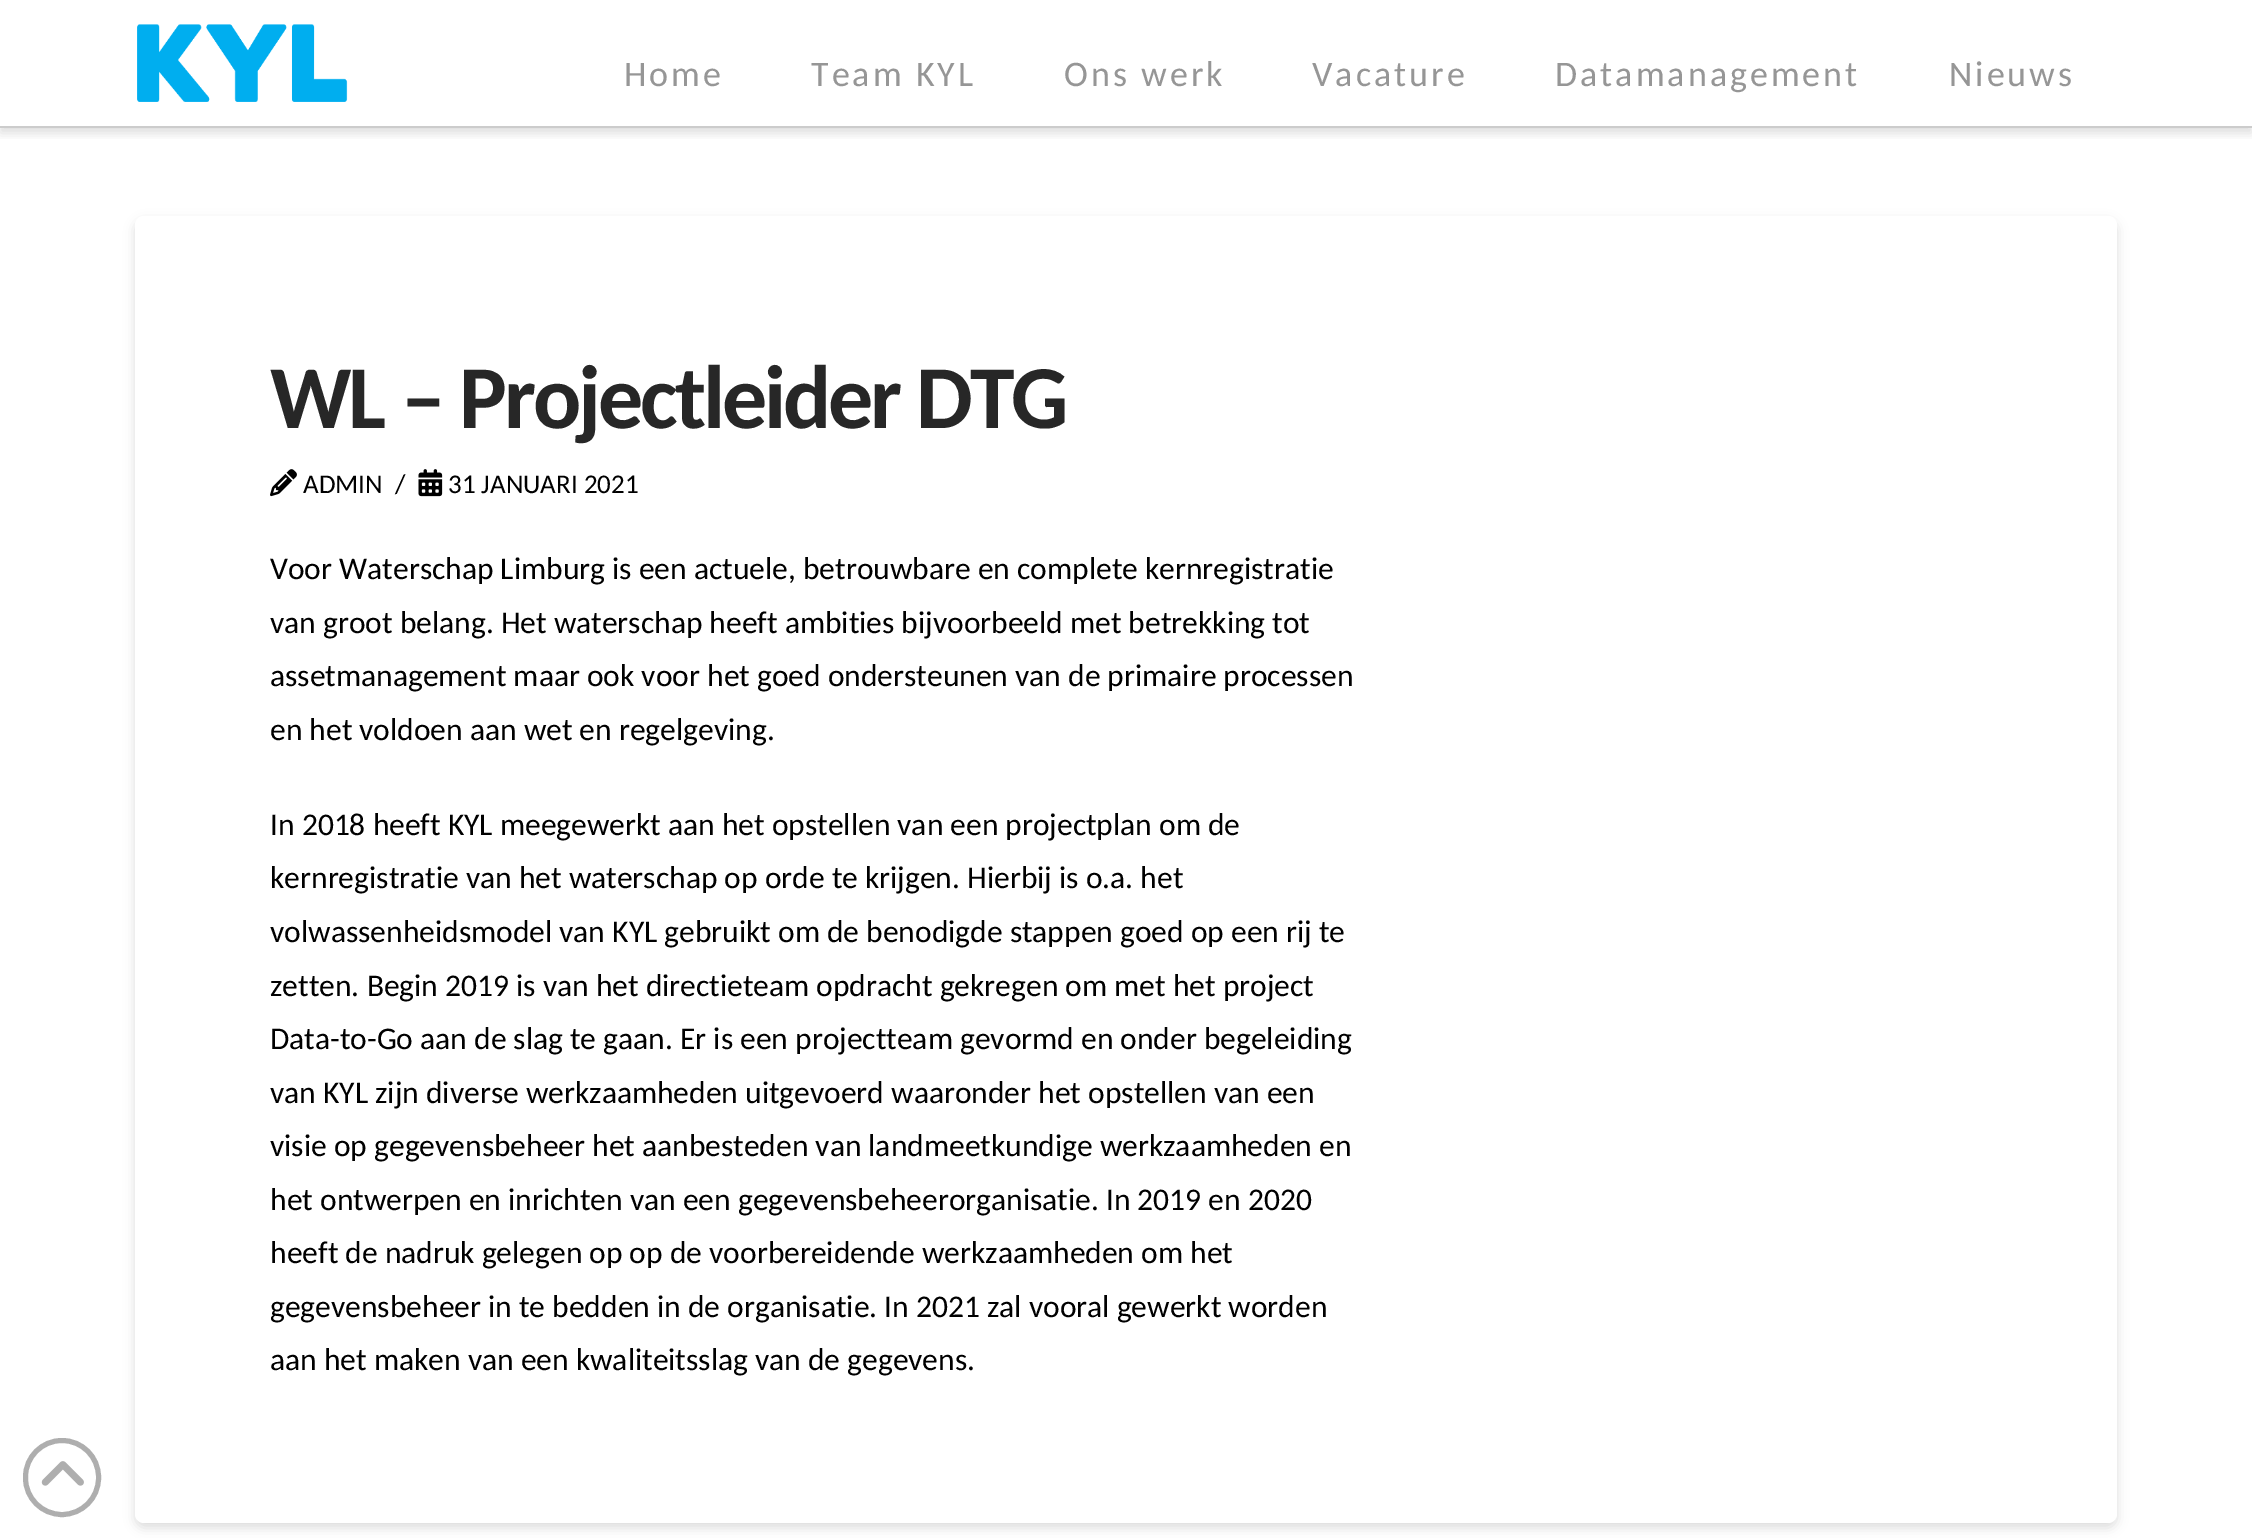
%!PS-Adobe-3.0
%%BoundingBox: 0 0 2252 1538
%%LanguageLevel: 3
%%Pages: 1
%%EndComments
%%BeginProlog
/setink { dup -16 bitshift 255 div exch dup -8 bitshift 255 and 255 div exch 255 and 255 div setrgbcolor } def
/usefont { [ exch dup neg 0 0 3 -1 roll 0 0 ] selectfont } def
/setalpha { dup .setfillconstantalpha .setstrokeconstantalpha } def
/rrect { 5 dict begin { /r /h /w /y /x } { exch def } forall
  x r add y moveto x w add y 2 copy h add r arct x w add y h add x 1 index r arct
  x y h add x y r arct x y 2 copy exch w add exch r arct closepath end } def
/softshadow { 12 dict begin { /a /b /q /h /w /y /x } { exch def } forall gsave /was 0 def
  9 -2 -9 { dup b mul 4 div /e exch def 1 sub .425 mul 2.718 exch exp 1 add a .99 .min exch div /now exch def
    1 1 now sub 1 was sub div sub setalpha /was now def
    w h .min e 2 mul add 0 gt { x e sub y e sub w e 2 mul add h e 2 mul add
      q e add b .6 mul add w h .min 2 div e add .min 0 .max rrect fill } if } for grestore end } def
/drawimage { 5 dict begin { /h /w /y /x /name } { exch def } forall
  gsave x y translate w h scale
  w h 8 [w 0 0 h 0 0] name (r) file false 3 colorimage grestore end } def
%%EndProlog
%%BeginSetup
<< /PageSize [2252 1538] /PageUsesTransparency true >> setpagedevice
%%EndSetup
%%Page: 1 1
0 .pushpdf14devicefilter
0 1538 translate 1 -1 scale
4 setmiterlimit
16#FFFFFF setink
0 0 2252 1538 rectfill
gsave
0 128 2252 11 rectclip
16#000000 setink
0 5 2252 128 0 5.5 0.13 softshadow
grestore
16#CCCCCC setink
0 126 2252 2 rectfill
(img1.raw) 137 24 211 78 drawimage
/Carlito-Regular 36 usefont
16#969696 setink
624 86 moveto 3 0 (Home) ashow
811 86 moveto 3 0 (Team KYL) ashow
1064 86 moveto 3 0 (Ons werk) ashow
1312 86 moveto 3 0 (Vacature) ashow
1555 86 moveto 3 0 (Datamanagement) ashow
1949 86 moveto 3 0 (Nieuws) ashow
16#000000 setink
135 221 1982 1307 9 5.5 0.13 softshadow
16#FFFFFF setink
135 216 1982 1307 9 rrect fill
/Carlito-Bold 90 usefont
16#272727 setink
270 428 moveto -3.15 0 (WL – Projectleider DTG) ashow
(img2.raw) 270 469 27 28 drawimage
/Carlito-Regular 27 usefont
16#000000 setink
303 493 moveto (ADMIN) show
395 493 moveto (/) show
(img3.raw) 418 469 25 28 drawimage
448 493 moveto (31 JANUARI 2021) show
/Carlito-Regular 31.5 usefont
[
    [(Voor Waterschap Limburg is een actuele, betrouwbare en complete kernregistratie) 270 579]
    [(van groot belang. Het waterschap heeft ambities bijvoorbeeld met betrekking tot) 270 633]
    [(assetmanagement maar ook voor het goed ondersteunen van de primaire processen) 270 686]
    [(en het voldoen aan wet en regelgeving.) 270 740]
    [(In 2018 heeft KYL meegewerkt aan het opstellen van een projectplan om de) 270 835]
    [(kernregistratie van het waterschap op orde te krijgen. Hierbij is o.a. het) 270 888]
    [(volwassenheidsmodel van KYL gebruikt om de benodigde stappen goed op een rij te) 270 942]
    [(zetten. Begin 2019 is van het directieteam opdracht gekregen om met het project) 270 996]
    [(Data-to-Go aan de slag te gaan. Er is een projectteam gevormd en onder begeleiding) 270 1049]
    [(van KYL zijn diverse werkzaamheden uitgevoerd waaronder het opstellen van een) 270 1103]
    [(visie op gegevensbeheer het aanbesteden van landmeetkundige werkzaamheden en) 270 1156]
    [(het ontwerpen en inrichten van een gegevensbeheerorganisatie. In 2019 en 2020) 270 1210]
    [(heeft de nadruk gelegen op op de voorbereidende werkzaamheden om het) 270 1263]
    [(gegevensbeheer in te bedden in de organisatie. In 2021 zal vooral gewerkt worden) 270 1317]
    [(aan het maken van een kwaliteitsslag van de gegevens.) 270 1370]
] { aload pop moveto show } forall
16#AEAEAE setink
5 setlinewidth
25.5 1440.5 73 74 36.5 rrect stroke
(img4.raw) 41 1461 43 25 drawimage
.poppdf14devicefilter showpage
%%EOF
